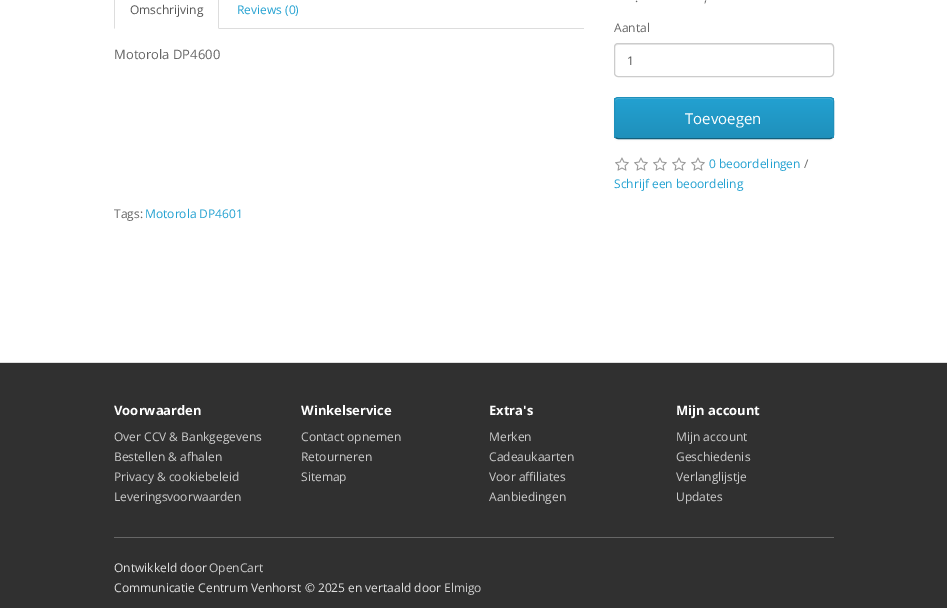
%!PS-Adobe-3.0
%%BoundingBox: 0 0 947 608
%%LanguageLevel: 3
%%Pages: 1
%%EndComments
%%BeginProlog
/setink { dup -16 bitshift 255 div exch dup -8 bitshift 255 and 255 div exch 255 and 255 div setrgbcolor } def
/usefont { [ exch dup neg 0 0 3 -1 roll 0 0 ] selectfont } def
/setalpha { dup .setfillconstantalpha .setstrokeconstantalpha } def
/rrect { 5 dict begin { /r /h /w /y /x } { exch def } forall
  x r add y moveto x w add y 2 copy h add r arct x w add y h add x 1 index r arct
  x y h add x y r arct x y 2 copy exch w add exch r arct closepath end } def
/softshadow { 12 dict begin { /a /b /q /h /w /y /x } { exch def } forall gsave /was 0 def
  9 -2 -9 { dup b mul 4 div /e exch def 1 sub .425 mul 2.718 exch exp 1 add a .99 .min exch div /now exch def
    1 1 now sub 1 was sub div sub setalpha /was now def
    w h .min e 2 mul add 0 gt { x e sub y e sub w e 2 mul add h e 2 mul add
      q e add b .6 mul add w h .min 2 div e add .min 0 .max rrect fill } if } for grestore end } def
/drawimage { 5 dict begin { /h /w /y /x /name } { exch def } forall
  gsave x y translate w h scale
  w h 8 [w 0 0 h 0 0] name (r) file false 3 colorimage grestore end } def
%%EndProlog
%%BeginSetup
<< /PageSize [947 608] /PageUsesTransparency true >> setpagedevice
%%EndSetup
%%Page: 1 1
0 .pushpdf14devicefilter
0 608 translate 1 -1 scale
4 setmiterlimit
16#FFFFFF setink
0 0 947 608 rectfill
16#DDDDDD setink
219 28 365 1 rectfill
219 29 moveto 219 -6 lineto 219 -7 218.5 -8 218 -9 curveto 217 -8 lineto 218 -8 218 -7 218 -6 curveto 218 28 lineto closepath fill
114 29 moveto 115 28 lineto 115 -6 lineto 115 -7 115 -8 116 -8 curveto 115 -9 lineto 114.5 -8 114 -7 114 -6 curveto closepath fill
/OpenSans-Regular 12 usefont
16#555555 setink
130 14 moveto (Omschrijving) show
16#23A1D1 setink
237 14 moveto (Reviews \(0\)) show
/OpenSans-Regular 13 usefont
16#666666 setink
114 59 moveto (Motorola DP4600) show
/OpenSans-Regular 12 usefont
[
    [(.) 635 2]
    [(,) 704 2]
    [(Aantal) 614 32]
] { aload pop moveto show } forall
16#ECECEC setink
618 45 moveto 830 45 lineto 832 45 833 46 833 48 curveto 833 47 lineto 833 45 832 44 830 44 curveto 618 44 lineto 616 44 615 45 615 47 curveto 615 48 lineto 615 46 616 45 618 45 curveto closepath fill
16#CCCCCC setink
614.5 43.5 219 33 3.5 rrect stroke
16#555555 setink
627 65 moveto (1) show
16#000000 setink
614 98 220 42 4 1 0.05 softshadow
gsave
614 97 220 42 4 rrect clip newpath
gsave 614 98 moveto 834 98 lineto 834 138 lineto 614 138 lineto closepath clip newpath
<< /ShadingType 2 /ColorSpace /DeviceRGB /Coords [724 98 724 138] /Extend [true true] /Function << /FunctionType 2 /Domain [0 1] /C0 [0.137 0.631 0.82] /C1 [0.122 0.565 0.733] /N 1 >> >> shfill grestore
grestore
16#4FB4DA setink
618 99 moveto 830 99 lineto 832 99 833 100 833 102 curveto 833 101 lineto 833 99 832 98 830 98 curveto 618 98 lineto 616 98 615 99 615 101 curveto 615 102 lineto 615 100 616 99 618 99 curveto closepath fill
16#145E7A setink
832.5 137.5 moveto 832 138 831 138.5 830 138.5 curveto 618 138.5 lineto 617 138.5 616 138 615.5 137.5 curveto stroke
16#1F90BB setink
615.5 137.5 moveto 615 137 614.5 136 614.5 135 curveto 614.5 101 lineto 614.5 100 615 99 615.5 98.5 curveto 616 98 617 97.5 618 97.5 curveto 830 97.5 lineto 831 97.5 832 98 832.5 98.5 curveto 833 99 833.5 100 833.5 101 curveto 833.5 135 lineto 833.5 136 833 137 832.5 137.5 curveto stroke
/OpenSans-Regular 15 usefont
16#FFFFFF setink
685 124 moveto (Toevoegen) show
(img1.raw) 615 157 14 14 drawimage
(img1.raw) 634 157 14 14 drawimage
(img1.raw) 653 157 14 14 drawimage
(img1.raw) 672 157 14 14 drawimage
(img1.raw) 691 157 14 14 drawimage
/OpenSans-Regular 12 usefont
16#23A1D1 setink
709 168 moveto (0 beoordelingen) show
16#666666 setink
804 168 moveto (/) show
16#23A1D1 setink
614 188 moveto (Schrijf een beoordeling) show
16#666666 setink
114 218 moveto (Tags:) show
16#23A1D1 setink
145 218 moveto (Motorola DP4601) show
16#303030 setink
0 363 947 245 rectfill
16#DDDDDD setink
0 362 947 1 rectfill
/OpenSans-Bold 13 usefont
16#FFFFFF setink
114 415 moveto (Voorwaarden) show
/OpenSans-Regular 12 usefont
16#CCCCCC setink
[
    [(Over CCV & Bankgegevens) 114 441]
    [(Bestellen & afhalen) 114 461]
    [(Privacy & cookiebeleid) 114 481]
    [(Leveringsvoorwaarden) 114 501]
] { aload pop moveto show } forall
/OpenSans-Bold 13 usefont
16#FFFFFF setink
301 415 moveto (Winkelservice) show
/OpenSans-Regular 12 usefont
16#CCCCCC setink
[
    [(Contact opnemen) 301 441]
    [(Retourneren) 301 461]
    [(Sitemap) 301 481]
] { aload pop moveto show } forall
/OpenSans-Bold 13 usefont
16#FFFFFF setink
489 415 moveto (Extra's) show
/OpenSans-Regular 12 usefont
16#CCCCCC setink
[
    [(Merken) 489 441]
    [(Cadeaukaarten) 489 461]
    [(Voor affiliates) 489 481]
    [(Aanbiedingen) 489 501]
] { aload pop moveto show } forall
/OpenSans-Bold 13 usefont
16#FFFFFF setink
676 415 moveto (Mijn account) show
/OpenSans-Regular 12 usefont
16#CCCCCC setink
[
    [(Mijn account) 676 441]
    [(Geschiedenis) 676 461]
    [(Verlanglijstje) 676 481]
    [(Updates) 676 501]
] { aload pop moveto show } forall
16#666666 setink
114 537 720 1 rectfill
16#E2E2E2 setink
114 572 moveto (Ontwikkeld door) show
16#CCCCCC setink
209 572 moveto (OpenCart) show
16#E2E2E2 setink
114 592 moveto (Communicatie Centrum Venhorst © 2025 en vertaald door) show
16#CCCCCC setink
444 592 moveto (Elmigo) show
.poppdf14devicefilter showpage
%%EOF
